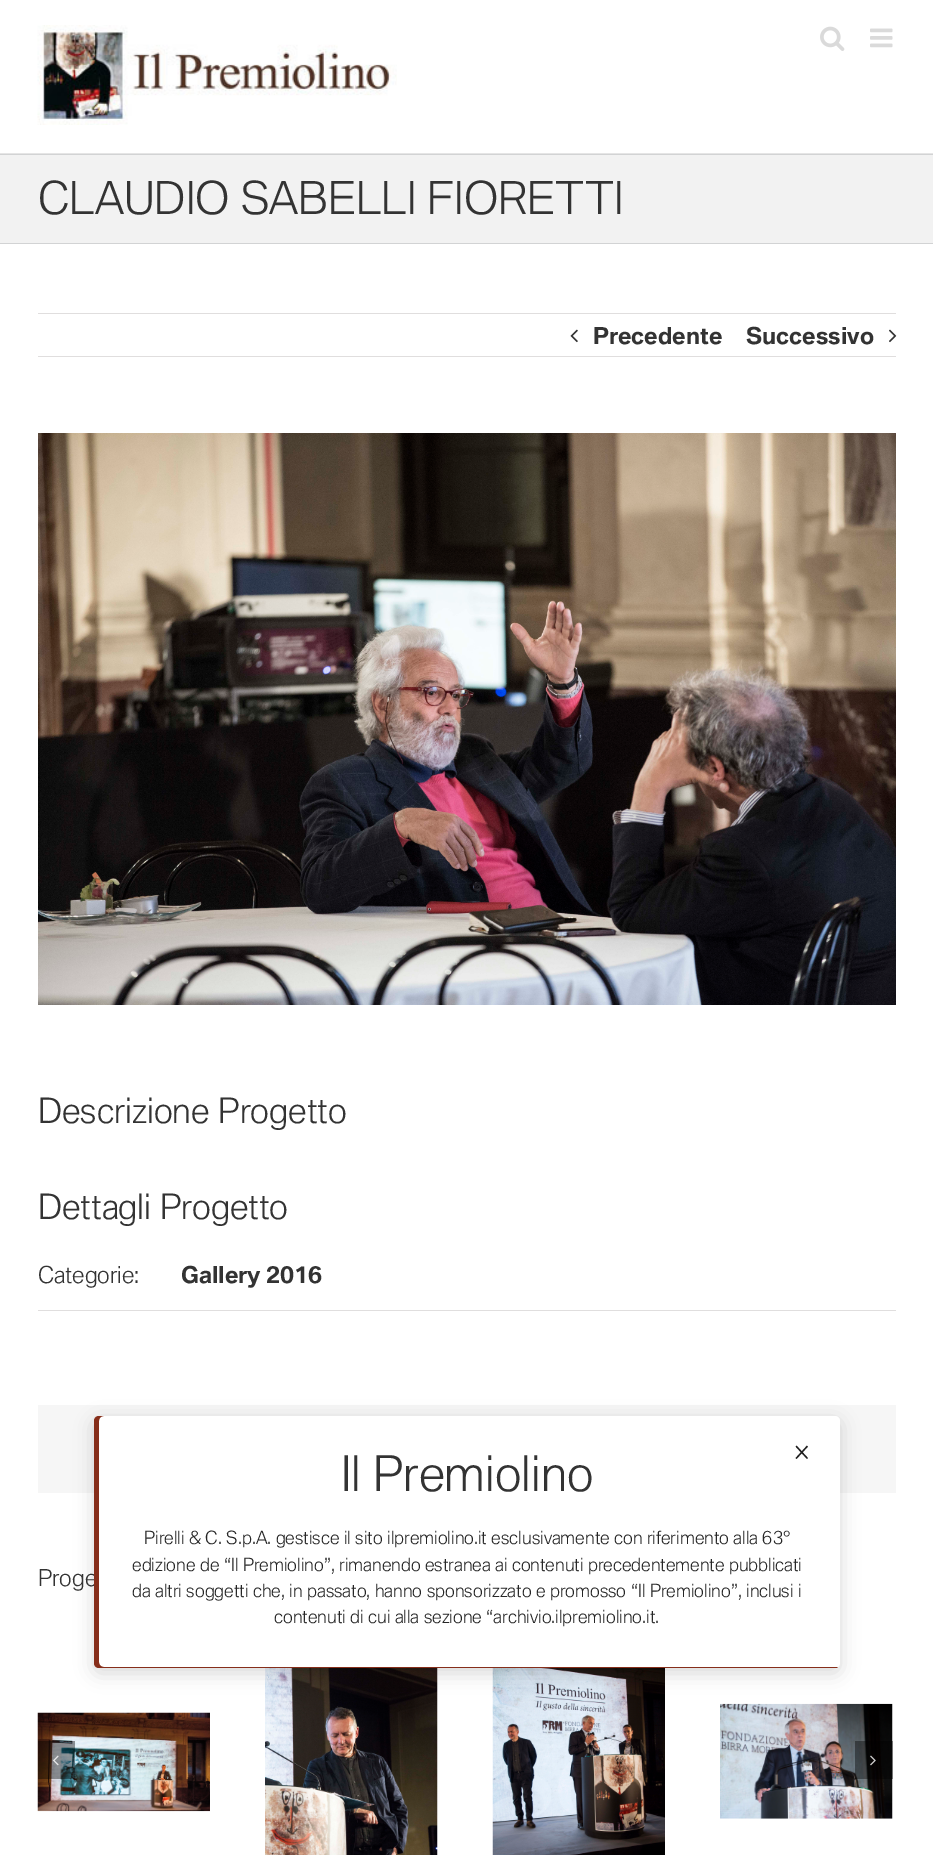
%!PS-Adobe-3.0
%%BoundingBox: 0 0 933 1855
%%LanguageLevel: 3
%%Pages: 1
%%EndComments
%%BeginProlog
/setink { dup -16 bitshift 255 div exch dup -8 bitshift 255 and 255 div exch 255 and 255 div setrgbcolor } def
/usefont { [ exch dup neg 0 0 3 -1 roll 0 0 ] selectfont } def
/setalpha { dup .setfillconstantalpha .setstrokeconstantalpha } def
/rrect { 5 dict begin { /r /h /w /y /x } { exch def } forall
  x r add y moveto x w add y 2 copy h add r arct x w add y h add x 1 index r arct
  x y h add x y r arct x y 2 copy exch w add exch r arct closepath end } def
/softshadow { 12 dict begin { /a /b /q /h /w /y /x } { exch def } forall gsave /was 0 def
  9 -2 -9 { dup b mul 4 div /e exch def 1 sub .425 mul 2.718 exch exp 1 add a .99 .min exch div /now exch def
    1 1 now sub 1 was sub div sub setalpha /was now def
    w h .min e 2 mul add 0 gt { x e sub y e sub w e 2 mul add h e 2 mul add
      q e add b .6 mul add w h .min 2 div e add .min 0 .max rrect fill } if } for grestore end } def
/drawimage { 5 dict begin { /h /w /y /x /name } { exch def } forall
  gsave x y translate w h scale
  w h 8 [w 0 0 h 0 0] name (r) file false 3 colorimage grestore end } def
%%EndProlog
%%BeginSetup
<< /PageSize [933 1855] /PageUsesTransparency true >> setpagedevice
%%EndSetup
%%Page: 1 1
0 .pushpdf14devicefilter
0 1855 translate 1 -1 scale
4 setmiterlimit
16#FFFFFF setink
0 0 933 1855 rectfill
16#E5E5E5 setink
0 153 933 1 rectfill
(img1.raw) 37 25 360 100 drawimage
(img2.raw) 820 26 25 25 drawimage
(img3.raw) 870 28 23 20 drawimage
[
    [0 155 933 88 16#F2F2F2]
    [0 154 933 1 16#D2D3D4]
    [0 243 933 1 16#D2D3D4]
] { aload pop setink rectfill } forall
/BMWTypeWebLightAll-Light 43.75 usefont
16#333333 setink
38 214 moveto (CLAUDIO SABELLI FIORETTI) show
16#E0DEDE setink
38 313 858 1 rectfill
38 356 858 1 rectfill
(img4.raw) 570 329 8 14 drawimage
/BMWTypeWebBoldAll-Bold 22.5 usefont
16#333333 setink
593 344 moveto (Precedente) show
746 344 moveto (Successivo) show
(img5.raw) 889 329 8 14 drawimage
(img6.raw) 38 433 858 572 drawimage
/BMWTypeWebLightAll-Light 33.75 usefont
38 1123 moveto (Descrizione Progetto) show
38 1219 moveto (Dettagli Progetto) show
16#E0DEDE setink
38 1310 858 1 rectfill
/BMWTypeWebLightAll-Light 22.5 usefont
16#333333 setink
38 1283 moveto (Categorie:) show
/BMWTypeWebBoldAll-Bold 22.5 usefont
181 1283 moveto (Gallery 2016) show
16#F6F6F6 setink
38 1405 858 88 rectfill
/BMWTypeWebLightAll-Light 22.5 usefont
16#333333 setink
38 1586 moveto (Proge) show
(img7.raw) 37 1712 173 100 drawimage
(img8.raw) 265 1668 173 187 drawimage
(img9.raw) 492 1668 173 187 drawimage
(img10.raw) 720 1703 173 116 drawimage
0.4 setalpha
16#000000 setink
38 1741 37 38 rectfill
1 setalpha
(img11.raw) 53 1755 6 11 drawimage
0.4 setalpha
855 1741 38 38 rectfill
1 setalpha
(img12.raw) 870 1755 6 11 drawimage
94 1421 746 252 5 9.5 0.15 softshadow
16#FFFFFF setink
94 1416 746 252 5 rrect fill
16#862E1A setink
99 1416 moveto 96 1416 94 1418 94 1421 curveto 94 1663 lineto 94 1666 96 1668 99 1668 curveto 835 1668 lineto 836 1668 837 1668 838 1667 curveto 104 1667 lineto 101 1667 99 1665 99 1662 curveto 99 1421 lineto 99 1418 101 1416 104 1416 curveto closepath fill
/BMWTypeWebLightAll-Light 30 usefont
16#1F1F1F setink
793 1463 moveto (×) show
/BMWTypeWebLightAll-Light 47.5 usefont
16#333333 setink
341 1491 moveto (Il Premiolino) show
/BMWTypeWebLightAll-Light 17.5 usefont
16#262626 setink
[
    [(Pirelli & C. S.p.A. gestisce il sito ilpremiolino.it esclusivamente con riferimento alla 63°) 144 1544]
    [(edizione de “Il Premiolino”, rimanendo estranea ai contenuti precedentemente pubblicati) 132 1571]
    [(da altri soggetti che, in passato, hanno sponsorizzato e promosso “Il Premiolino”, inclusi i) 132 1597]
    [(contenuti di cui alla sezione “archivio.ilpremiolino.it.) 274 1623]
] { aload pop moveto show } forall
.poppdf14devicefilter showpage
%%EOF
